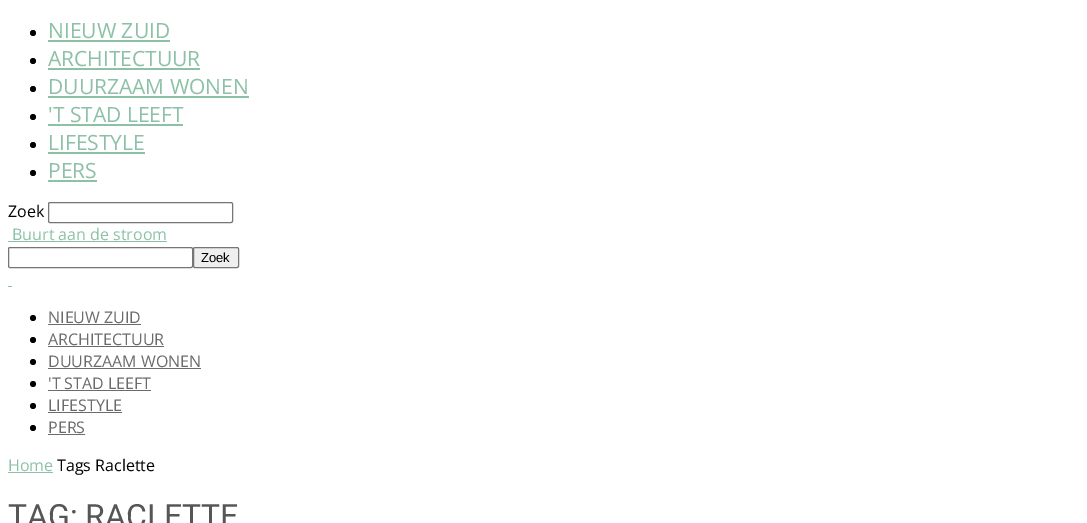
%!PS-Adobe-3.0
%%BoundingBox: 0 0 1087 523
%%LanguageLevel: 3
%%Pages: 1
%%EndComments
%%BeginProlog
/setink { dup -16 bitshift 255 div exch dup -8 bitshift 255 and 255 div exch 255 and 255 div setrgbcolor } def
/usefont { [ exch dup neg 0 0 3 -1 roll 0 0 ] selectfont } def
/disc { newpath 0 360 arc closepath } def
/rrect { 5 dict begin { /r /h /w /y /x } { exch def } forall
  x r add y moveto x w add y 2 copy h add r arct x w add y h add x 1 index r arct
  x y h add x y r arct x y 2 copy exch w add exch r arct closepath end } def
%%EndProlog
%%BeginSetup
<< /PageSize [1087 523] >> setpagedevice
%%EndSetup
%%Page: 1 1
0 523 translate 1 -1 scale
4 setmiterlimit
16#FFFFFF setink
0 0 1087 523 rectfill
16#000000 setink
33 33 3 disc fill
/OpenSans-Regular 21 usefont
16#8CC1A6 setink
48 38 moveto (NIEUW ZUID) show
48 40 122 2 rectfill
16#000000 setink
33 61 3 disc fill
16#8CC1A6 setink
48 66 moveto (ARCHITECTUUR) show
48 68 152 2 rectfill
16#000000 setink
33 89 3 disc fill
16#8CC1A6 setink
48 94 moveto (DUURZAAM WONEN) show
48 96 201 2 rectfill
16#000000 setink
33 117 3 disc fill
16#8CC1A6 setink
48 122 moveto ('T STAD LEEFT) show
48 124 135 2 rectfill
16#000000 setink
33 145 3 disc fill
16#8CC1A6 setink
48 150 moveto (LIFESTYLE) show
48 152 97 2 rectfill
16#000000 setink
33 173 3 disc fill
16#8CC1A6 setink
48 178 moveto (PERS) show
48 180 49 2 rectfill
/OpenSans-Regular 16 usefont
16#000000 setink
8 217 moveto (Zoek) show
16#767676 setink
48.5 202.5 184 20 1.5 rrect stroke
16#8CC1A6 setink
12 240 moveto (Buurt aan de stroom) show
8 241 159 1 rectfill
16#767676 setink
8.5 247.5 184 20 1.5 rrect stroke
16#EFEFEF setink
193.5 247.5 45 20 1.5 rrect gsave fill grestore
16#767676 setink
stroke
/LiberationSans-Regular 13 usefont
16#000000 setink
201 262 moveto (Zoek) show
16#8CC1A6 setink
8 286 4 1 rectfill
16#000000 setink
33 318 3 disc fill
/OpenSans-Regular 16 usefont
16#6B6B6B setink
48 323 moveto (NIEUW ZUID) show
48 324 93 1 rectfill
16#000000 setink
33 340 3 disc fill
16#6B6B6B setink
48 345 moveto (ARCHITECTUUR) show
48 346 116 1 rectfill
16#000000 setink
33 362 3 disc fill
16#6B6B6B setink
48 367 moveto (DUURZAAM WONEN) show
48 368 153 1 rectfill
16#000000 setink
33 384 3 disc fill
16#6B6B6B setink
48 389 moveto ('T STAD LEEFT) show
48 390 103 1 rectfill
16#000000 setink
33 406 3 disc fill
16#6B6B6B setink
48 411 moveto (LIFESTYLE) show
48 412 74 1 rectfill
16#000000 setink
33 428 3 disc fill
16#6B6B6B setink
48 433 moveto (PERS) show
48 434 37 1 rectfill
16#8CC1A6 setink
8 471 moveto (Home) show
8 472 45 1 rectfill
16#000000 setink
57 471 moveto (Tags Raclette) show
/Roboto-Regular 32 usefont
16#565656 setink
8 527 moveto (TAG: RACLETTE) show
showpage
%%EOF
